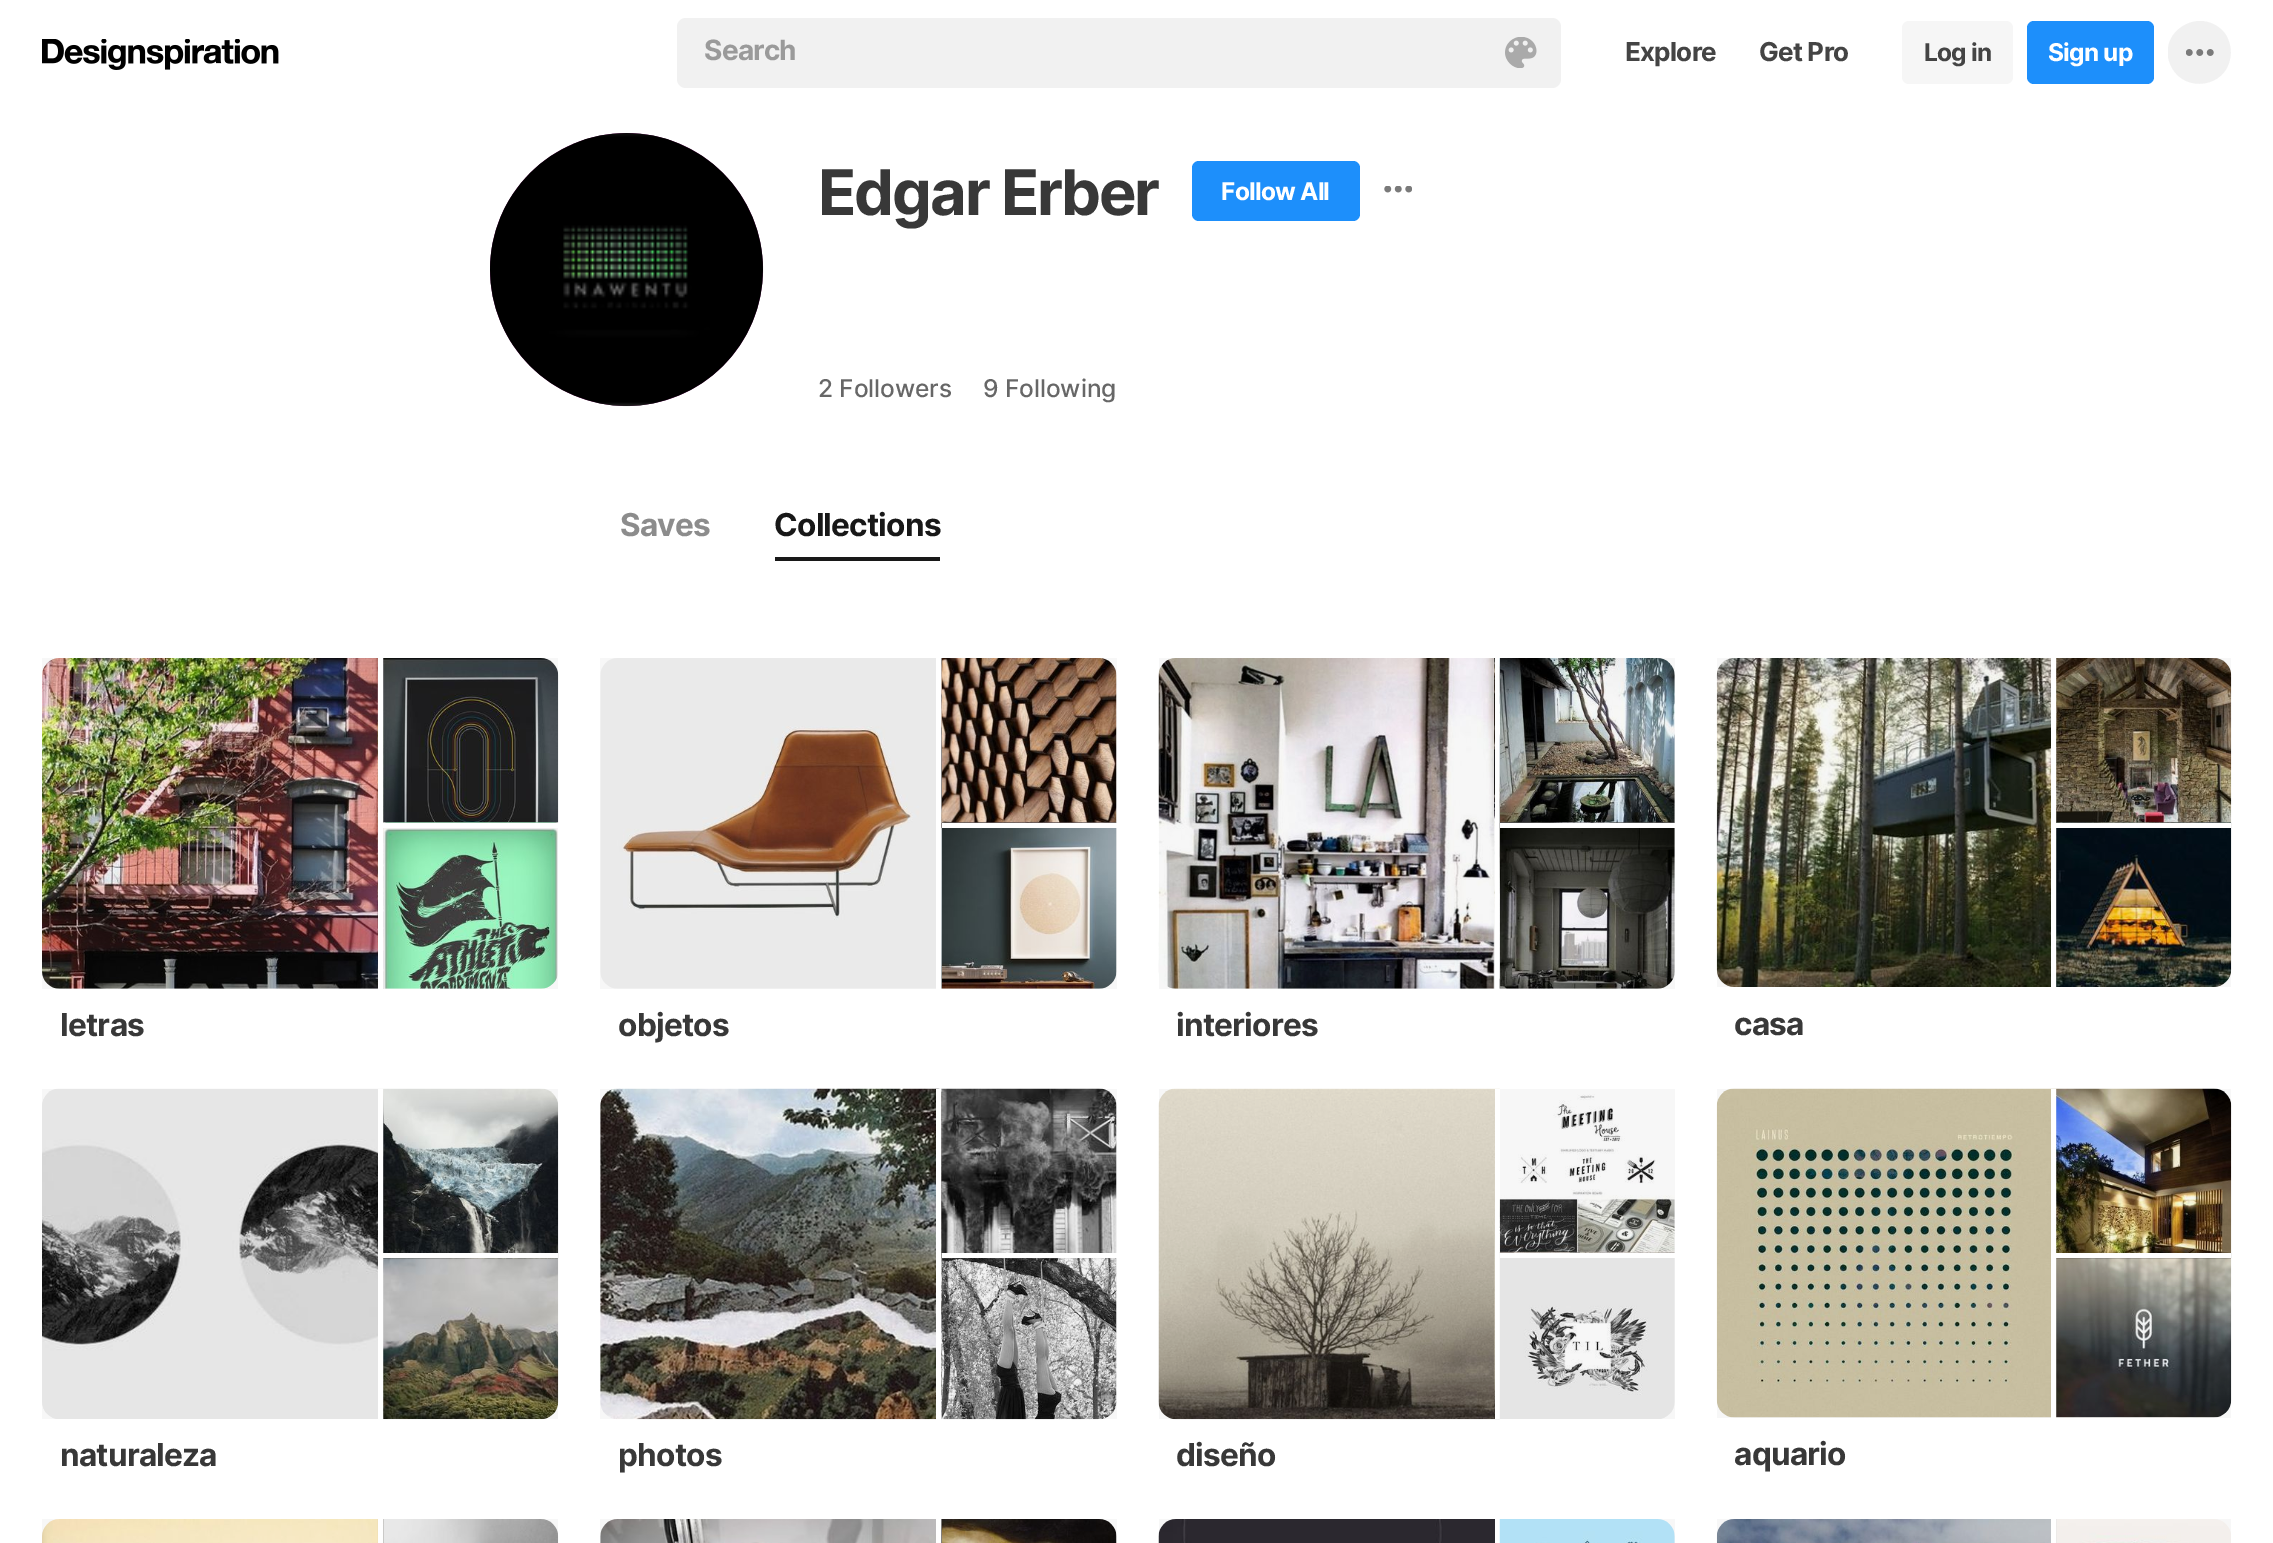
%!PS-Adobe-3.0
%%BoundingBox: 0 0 2273 1543
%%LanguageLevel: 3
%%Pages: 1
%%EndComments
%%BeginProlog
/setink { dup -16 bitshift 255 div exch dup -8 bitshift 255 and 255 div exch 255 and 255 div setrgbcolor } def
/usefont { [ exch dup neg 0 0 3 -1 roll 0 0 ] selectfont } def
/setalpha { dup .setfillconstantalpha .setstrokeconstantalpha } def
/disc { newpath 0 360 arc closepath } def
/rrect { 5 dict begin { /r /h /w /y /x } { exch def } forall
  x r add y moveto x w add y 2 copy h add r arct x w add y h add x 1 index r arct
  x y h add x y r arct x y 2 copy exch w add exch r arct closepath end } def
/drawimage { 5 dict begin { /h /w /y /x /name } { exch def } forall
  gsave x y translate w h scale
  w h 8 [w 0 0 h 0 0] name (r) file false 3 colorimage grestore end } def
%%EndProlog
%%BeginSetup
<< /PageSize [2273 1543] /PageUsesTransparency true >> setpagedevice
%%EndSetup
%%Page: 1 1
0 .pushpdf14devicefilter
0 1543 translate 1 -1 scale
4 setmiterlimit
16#FFFFFF setink
0 0 2273 1543 rectfill
(img1.raw) 42 39 237 31 drawimage
16#F1F1F1 setink
677 18 884 70 9 rrect fill
/Inter-Bold 28 usefont
16#9A9A9A setink
704 60 moveto -0.75 0 (Search) ashow
(img2.raw) 1505 37 32 31 drawimage
/Inter-Bold 26 usefont
16#444444 setink
1625 61 moveto -0.75 0 (Explore) ashow
1759 61 moveto -0.75 0 (Get Pro) ashow
16#F6F6F6 setink
1902 21 111 63 7 rrect fill
/Inter-Bold 24.5 usefont
16#444444 setink
1924 61 moveto -0.75 0 (Log in) ashow
16#1D8FFB setink
2027 21 127 63 7 rrect fill
16#FFFFFF setink
2048 61 moveto -0.75 0 (Sign up) ashow
16#F1F1F1 setink
2200 21 moveto 2210 21 2220 26 2226 35 curveto 2230 42 2232 51 2230 59 curveto 2225 87 2186 93 2172 68 curveto 2170 64 2169 62 2168 57 curveto 2168 49 lineto 2169 33 2185 21 2200 21 curveto closepath fill
(img3.raw) 2186 49 28 7 drawimage
16#6A145D setink
626.5 269.5 136.5 disc fill
(img4.raw) 490 133 273 273 drawimage
0.1 setalpha
16#000000 setink
2 setlinewidth
626.5 269.5 135.5 disc stroke
/Inter-Bold 63 usefont
1 setalpha
16#383838 setink
818 215 moveto -2.1 0 (Edgar Erber) ashow
16#1D8FFB setink
1192 161 168 60 7 rrect fill
/Inter-Bold 24.5 usefont
16#FFFFFF setink
1221 200 moveto -0.75 0 (Follow All) ashow
(img5.raw) 1384 186 28 7 drawimage
/Inter-Medium 24.5 usefont
16#676767 setink
818 397 moveto -0.1 0 (2 Followers) ashow
983 397 moveto -0.1 0 (9 Following) ashow
/Inter-Bold 31.5 usefont
16#8C8C8C setink
620 536 moveto -0.75 0 (Saves) ashow
16#181818 setink
774 536 moveto -0.75 0 (Collections) ashow
775 557 165 4 rectfill
(img6.raw) 42 658 342 331 drawimage
16#FFFFFF setink
378 658 5 331 rectfill
0.03 setalpha
16#000000 setink
42 658 336 331 rectfill
1 setalpha
(img7.raw) 383 658 176 165 drawimage
(img8.raw) 383 822 175 167 drawimage
0.03 setalpha
[
    [383 658 175 165 16#000000]
] { aload pop setink rectfill } forall
1 setalpha
[
    [383 823 175 5 16#FFFFFF]
] { aload pop setink rectfill } forall
0.03 setalpha
[
    [383 828 175 161 16#000000]
] { aload pop setink rectfill } forall
1 setalpha
16#383838 setink
60 1036 moveto -0.75 0 (letras) ashow
(img9.raw) 600 658 342 331 drawimage
16#FFFFFF setink
936 658 5 331 rectfill
0.03 setalpha
16#000000 setink
600 658 336 331 rectfill
1 setalpha
(img10.raw) 941 658 176 165 drawimage
(img11.raw) 941 822 176 167 drawimage
0.03 setalpha
[
    [942 658 175 165 16#000000]
] { aload pop setink rectfill } forall
1 setalpha
[
    [942 823 175 5 16#FFFFFF]
] { aload pop setink rectfill } forall
0.03 setalpha
[
    [942 828 175 161 16#000000]
] { aload pop setink rectfill } forall
1 setalpha
16#383838 setink
618 1036 moveto -0.75 0 (objetos) ashow
(img12.raw) 1158 658 337 331 drawimage
0.03 setalpha
16#000000 setink
1159 658 336 331 rectfill
1 setalpha
(img13.raw) 1499 658 176 165 drawimage
(img14.raw) 1499 822 176 167 drawimage
0.03 setalpha
[
    [1500 658 175 165 16#000000]
] { aload pop setink rectfill } forall
1 setalpha
[
    [1500 823 175 5 16#FFFFFF]
] { aload pop setink rectfill } forall
0.03 setalpha
[
    [1500 828 175 161 16#000000]
] { aload pop setink rectfill } forall
1 setalpha
16#383838 setink
1176 1036 moveto -0.75 0 (interiores) ashow
(img15.raw) 1716 658 341 329 drawimage
16#FFFFFF setink
2051 658 5 329 rectfill
0.03 setalpha
16#000000 setink
1717 658 334 329 rectfill
1 setalpha
(img16.raw) 2056 658 176 165 drawimage
(img17.raw) 2056 822 176 165 drawimage
0.03 setalpha
[
    [2056 658 175 165 16#000000]
] { aload pop setink rectfill } forall
1 setalpha
[
    [2056 823 175 5 16#FFFFFF]
] { aload pop setink rectfill } forall
0.03 setalpha
[
    [2056 858 175 129 16#000000]
] { aload pop setink rectfill } forall
1 setalpha
16#383838 setink
1734 1035 moveto -0.75 0 (casa) ashow
(img18.raw) 42 1088 342 331 drawimage
16#FFFFFF setink
378 1089 5 330 rectfill
0.03 setalpha
16#000000 setink
42 1089 336 330 rectfill
1 setalpha
(img19.raw) 383 1088 176 165 drawimage
0.03 setalpha
383 1089 175 164 rectfill
1 setalpha
(img20.raw) 383 1253 176 167 drawimage
16#FFFFFF setink
383 1253 175 5 rectfill
0.03 setalpha
16#000000 setink
383 1258 175 161 rectfill
1 setalpha
16#383838 setink
60 1466 moveto -0.75 0 (naturaleza) ashow
(img21.raw) 600 1088 342 332 drawimage
16#FFFFFF setink
936 1089 5 330 rectfill
0.03 setalpha
16#000000 setink
600 1089 336 330 rectfill
1 setalpha
(img22.raw) 941 1088 176 165 drawimage
0.03 setalpha
942 1089 175 164 rectfill
1 setalpha
(img23.raw) 941 1253 176 167 drawimage
16#FFFFFF setink
942 1253 175 5 rectfill
0.03 setalpha
16#000000 setink
942 1258 175 161 rectfill
1 setalpha
16#383838 setink
618 1466 moveto -0.75 0 (photos) ashow
(img24.raw) 1158 1088 342 332 drawimage
16#FFFFFF setink
1495 1089 5 330 rectfill
0.03 setalpha
16#000000 setink
1159 1089 336 330 rectfill
1 setalpha
(img25.raw) 1499 1094 176 159 drawimage
0.03 setalpha
1500 1089 175 164 rectfill
1 setalpha
(img26.raw) 1499 1253 176 166 drawimage
16#FFFFFF setink
1500 1253 175 5 rectfill
0.03 setalpha
16#000000 setink
1500 1258 175 161 rectfill
1 setalpha
16#383838 setink
1176 1466 moveto -0.75 0 (diseño) ashow
(img27.raw) 1716 1088 341 330 drawimage
16#FFFFFF setink
2051 1089 5 329 rectfill
0.03 setalpha
16#000000 setink
1717 1089 334 329 rectfill
1 setalpha
(img28.raw) 2056 1088 176 165 drawimage
0.03 setalpha
2056 1089 175 164 rectfill
1 setalpha
(img29.raw) 2056 1253 176 165 drawimage
16#FFFFFF setink
2056 1253 175 5 rectfill
0.03 setalpha
16#000000 setink
2056 1258 175 160 rectfill
1 setalpha
16#383838 setink
1734 1465 moveto -0.75 0 (aquario) ashow
(img30.raw) 42 1519 342 24 drawimage
16#FFFFFF setink
378 1519 5 24 rectfill
0.03 setalpha
16#000000 setink
42 1519 336 24 rectfill
1 setalpha
(img31.raw) 383 1519 176 24 drawimage
0.03 setalpha
383 1519 175 24 rectfill
1 setalpha
(img32.raw) 600 1519 342 24 drawimage
16#FFFFFF setink
936 1519 5 24 rectfill
0.03 setalpha
16#000000 setink
600 1519 336 24 rectfill
1 setalpha
(img33.raw) 941 1519 176 24 drawimage
0.03 setalpha
942 1519 175 24 rectfill
1 setalpha
(img34.raw) 1158 1519 337 24 drawimage
0.03 setalpha
1159 1519 14 13 rectfill
1 setalpha
(img35.raw) 1499 1519 176 24 drawimage
0.03 setalpha
1500 1519 175 24 rectfill
1 setalpha
(img36.raw) 1716 1519 341 24 drawimage
16#FFFFFF setink
2051 1519 5 24 rectfill
0.03 setalpha
16#000000 setink
1717 1519 334 24 rectfill
1 setalpha
(img37.raw) 2056 1519 175 24 drawimage
0.03 setalpha
2056 1519 175 24 rectfill
.poppdf14devicefilter showpage
%%EOF
